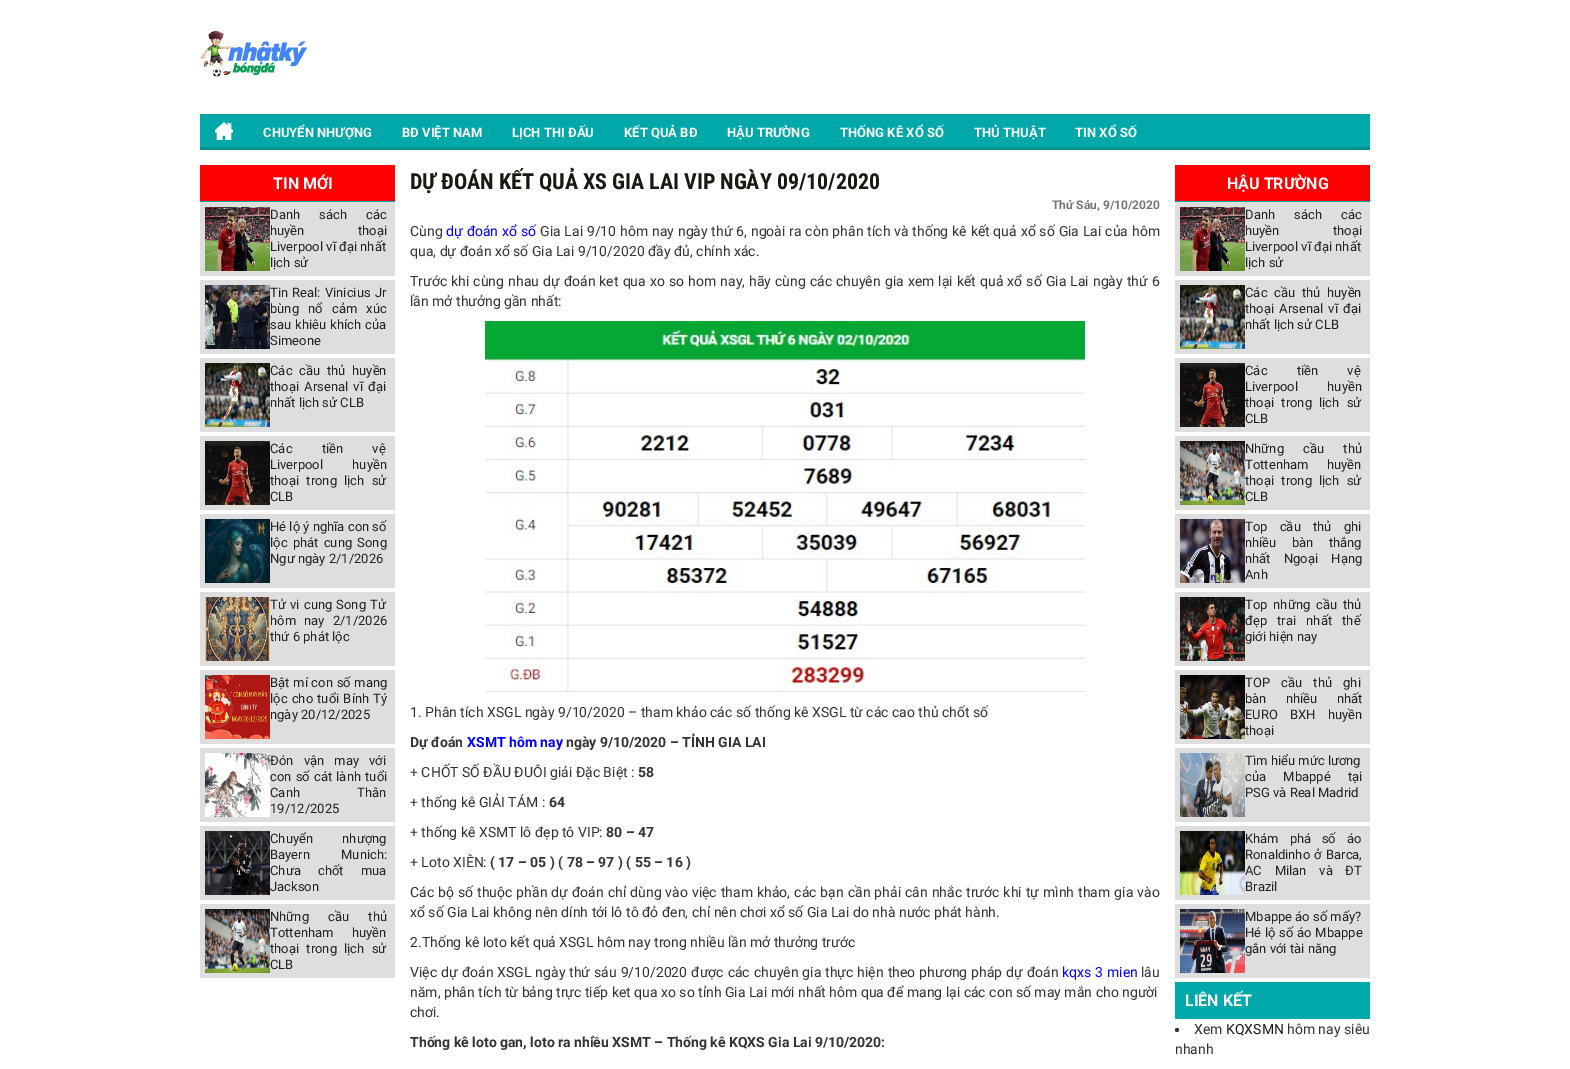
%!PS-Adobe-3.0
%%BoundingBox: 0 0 1570 1069
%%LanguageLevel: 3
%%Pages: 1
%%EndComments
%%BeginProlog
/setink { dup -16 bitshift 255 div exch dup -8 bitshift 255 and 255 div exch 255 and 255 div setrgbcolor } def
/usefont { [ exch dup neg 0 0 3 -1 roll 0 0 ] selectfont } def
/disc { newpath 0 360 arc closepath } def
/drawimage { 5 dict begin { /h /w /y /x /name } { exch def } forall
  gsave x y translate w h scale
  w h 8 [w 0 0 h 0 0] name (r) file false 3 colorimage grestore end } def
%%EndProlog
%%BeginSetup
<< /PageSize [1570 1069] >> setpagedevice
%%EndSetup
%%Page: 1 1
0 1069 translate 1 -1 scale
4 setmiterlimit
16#FFFFFF setink
0 0 1570 1069 rectfill
(img1.raw) 201 30 106 47 drawimage
16#00A8A9 setink
200 114 1170 33 rectfill
16#008F90 setink
200 147 1170 3 rectfill
(img2.raw) 215 122 18 18 drawimage
/Roboto-Bold 13 usefont
16#FFFFFF setink
[
    [(CHUYỂN NHƯỢNG) 263 137]
    [(BĐ VIỆT NAM) 402 137]
    [(LỊCH THI ĐẤU) 512 137]
    [(KẾT QUẢ BĐ) 624 137]
    [(HẬU TRƯỜNG) 727 137]
    [(THỐNG KÊ XỔ SỐ) 840 137]
    [(THỦ THUẬT) 974 137]
    [(TIN XỔ SỐ) 1075 137]
] { aload pop moveto show } forall
[
    [200 202 195 776 16#DEDEDE]
    [200 165 195 36 16#FF0000]
    [200 201 195 1 16#00A8A9]
] { aload pop setink rectfill } forall
/Roboto-Bold 16 usefont
16#FFFFFF setink
273 189 moveto (TIN MỚI) show
200 276 195 4 rectfill
(img3.raw) 205 207 65 64 drawimage
/Roboto-Regular 13 usefont
16#222222 setink
270 219 moveto 16 0 32 (Danh sách các) widthshow
270 235 moveto 50 0 32 (huyền thoại) widthshow
270 251 moveto (Liverpool vĩ đại nhất) show
270 267 moveto (lịch sử) show
16#FFFFFF setink
200 354 195 4 rectfill
(img4.raw) 205 285 65 64 drawimage
16#222222 setink
270 297 moveto 1 0 32 (Tin Real: Vinicius Jr) widthshow
270 313 moveto 6 0 32 (bùng nổ cảm xúc) widthshow
270 329 moveto 1 0 32 (sau khiêu khích của) widthshow
270 345 moveto (Simeone) show
16#FFFFFF setink
200 432 195 4 rectfill
(img5.raw) 205 363 65 64 drawimage
16#222222 setink
270 375 moveto 3.5 0 32 (Các cầu thủ huyền) widthshow
270 391 moveto 2 0 32 (thoại Arsenal vĩ đại) widthshow
270 407 moveto (nhất lịch sử CLB) show
16#FFFFFF setink
200 510 195 4 rectfill
(img6.raw) 205 441 65 64 drawimage
16#222222 setink
270 453 moveto 26 0 32 (Các tiền vệ) widthshow
270 469 moveto 26 0 32 (Liverpool huyền) widthshow
270 485 moveto 4 0 32 (thoại trong lịch sử) widthshow
270 501 moveto (CLB) show
16#FFFFFF setink
200 588 195 4 rectfill
(img7.raw) 205 519 65 64 drawimage
16#222222 setink
270 531 moveto (Hé lộ ý nghĩa con số) show
270 547 moveto 2 0 32 (lộc phát cung Song) widthshow
270 563 moveto (Ngư ngày 2/1/2026) show
16#FFFFFF setink
200 666 195 4 rectfill
(img8.raw) 205 597 65 64 drawimage
16#222222 setink
270 609 moveto 1 0 32 (Tử vi cung Song Tử) widthshow
270 625 moveto 5 0 32 (hôm nay 2/1/2026) widthshow
270 641 moveto (thứ 6 phát lộc) show
16#FFFFFF setink
200 744 195 4 rectfill
(img9.raw) 205 675 65 64 drawimage
16#222222 setink
270 687 moveto 0.5 0 32 (Bật mí con số mang) widthshow
270 703 moveto 1 0 32 (lộc cho tuổi Bính Tý) widthshow
270 719 moveto (ngày 20/12/2025) show
16#FFFFFF setink
200 822 195 4 rectfill
(img10.raw) 205 753 65 64 drawimage
16#222222 setink
270 765 moveto 7 0 32 (Đón vận may với) widthshow
270 781 moveto 1 0 32 (con số cát lành tuổi) widthshow
270 797 moveto 54 0 32 (Canh Thân) widthshow
270 813 moveto (19/12/2025) show
16#FFFFFF setink
200 900 195 4 rectfill
(img11.raw) 205 831 65 64 drawimage
16#222222 setink
270 843 moveto 26 0 32 (Chuyển nhượng) widthshow
270 859 moveto 28 0 32 (Bayern Munich:) widthshow
270 875 moveto 14 0 32 (Chưa chốt mua) widthshow
270 891 moveto (Jackson) show
(img12.raw) 205 909 65 64 drawimage
270 921 moveto 16 0 32 (Những cầu thủ) widthshow
270 937 moveto 15 0 32 (Tottenham huyền) widthshow
270 953 moveto 4 0 32 (thoại trong lịch sử) widthshow
270 969 moveto (CLB) show
/RobotoCondensed-Bold 22 usefont
16#191911 setink
410 189 moveto (DỰ ĐOÁN KẾT QUẢ XS GIA LAI VIP NGÀY 09/10/2020) show
/Roboto-Bold 12 usefont
16#757575 setink
1052 209 moveto (Thứ Sáu, 9/10/2020) show
/Roboto-Regular 14 usefont
16#333333 setink
410 236 moveto (Cùng) show
16#0000FF setink
446 236 moveto 0.5 0 32 (dự đoán xổ số) widthshow
16#333333 setink
540 236 moveto 0.4 0 32 (Gia Lai 9/10 hôm nay ngày thứ 6, ngoài ra còn phân tích và thống kê kết quả xổ số Gia Lai của hôm) widthshow
410 256 moveto (qua, dự đoán xổ số Gia Lai 9/10/2020 đầy đủ, chính xác.) show
410 286 moveto 0.6 0 32 (Trước khi cùng nhau dự đoán ket qua xo so hom nay, hãy cùng các chuyên gia xem lại kết quả xổ số Gia Lai ngày thứ 6) widthshow
410 306 moveto (lần mở thưởng gần nhất:) show
(img13.raw) 485 321 600 371 drawimage
410 717 moveto (1. Phân tích XSGL ngày 9/10/2020 – tham khảo các số thống kê XSGL từ các cao thủ chốt số) show
/Roboto-Bold 14 usefont
410 747 moveto (Dự đoán) show
16#0000FF setink
467 747 moveto (XSMT hôm nay) show
16#333333 setink
566 747 moveto (ngày 9/10/2020 – TỈNH GIA LAI) show
/Roboto-Regular 14 usefont
410 777 moveto (+ CHỐT SỐ ĐẦU ĐUÔI giải Đặc Biệt :) show
/Roboto-Bold 14 usefont
638 777 moveto (58) show
/Roboto-Regular 14 usefont
410 807 moveto (+ thống kê GIẢI TÁM :) show
/Roboto-Bold 14 usefont
549 807 moveto (64) show
/Roboto-Regular 14 usefont
410 837 moveto (+ thống kê XSMT lô đẹp tô VIP:) show
/Roboto-Bold 14 usefont
606 837 moveto (80 – 47) show
/Roboto-Regular 14 usefont
410 867 moveto (+ Loto XIÊN:) show
/Roboto-Bold 14 usefont
490 867 moveto (\( 17 – 05 \) \( 78 – 97 \) \( 55 – 16 \)) show
/Roboto-Regular 14 usefont
410 897 moveto 0.55 0 32 (Các bộ số thuộc phần dự đoán chỉ dùng vào việc tham khảo, các bạn cần phải cân nhắc trước khi tự mình tham gia vào) widthshow
410 917 moveto (xổ số Gia Lai không nên dính tới lô tô đỏ đen, chỉ nên chơi xổ số Gia Lai do nhà nước phát hành.) show
410 947 moveto (2.Thống kê loto kết quả XSGL hôm nay trong nhiều lần mở thưởng trước) show
410 977 moveto 0.5 0 32 (Việc dự đoán XSGL ngày thứ sáu 9/10/2020 được các chuyên gia thực hiện theo phương pháp dự đoán) widthshow
16#0000FF setink
1062 977 moveto 0.5 0 32 (kqxs 3 mien) widthshow
16#333333 setink
[
    [(lâu) 1141 977]
    [(năm, phân tích từ bảng trực tiếp ket qua xo so tỉnh Gia Lai mới nhất hôm qua để mang lại các con số may mắn cho người) 410 997]
    [(chơi.) 410 1017]
] { aload pop moveto show } forall
/Roboto-Bold 14 usefont
410 1047 moveto (Thống kê loto gan, loto ra nhiều XSMT – Thống kê KQXS Gia Lai 9/10/2020:) show
[
    [1175 202 195 776 16#DEDEDE]
    [1175 165 195 36 16#FF0000]
    [1175 201 195 1 16#00A8A9]
] { aload pop setink rectfill } forall
/Roboto-Bold 16 usefont
16#FFFFFF setink
1227 189 moveto (HẬU TRƯỜNG) show
1175 276 195 4 rectfill
(img14.raw) 1180 207 65 64 drawimage
/Roboto-Regular 13 usefont
16#222222 setink
1245 219 moveto 16 0 32 (Danh sách các) widthshow
1245 235 moveto 50 0 32 (huyền thoại) widthshow
1245 251 moveto (Liverpool vĩ đại nhất) show
1245 267 moveto (lịch sử) show
16#FFFFFF setink
1175 354 195 4 rectfill
(img15.raw) 1180 285 65 64 drawimage
16#222222 setink
1245 297 moveto 3.5 0 32 (Các cầu thủ huyền) widthshow
1245 313 moveto 2 0 32 (thoại Arsenal vĩ đại) widthshow
1245 329 moveto (nhất lịch sử CLB) show
16#FFFFFF setink
1175 432 195 4 rectfill
(img16.raw) 1180 363 65 64 drawimage
16#222222 setink
1245 375 moveto 26 0 32 (Các tiền vệ) widthshow
1245 391 moveto 26 0 32 (Liverpool huyền) widthshow
1245 407 moveto 4 0 32 (thoại trong lịch sử) widthshow
1245 423 moveto (CLB) show
16#FFFFFF setink
1175 510 195 4 rectfill
(img17.raw) 1180 441 65 64 drawimage
16#222222 setink
1245 453 moveto 16 0 32 (Những cầu thủ) widthshow
1245 469 moveto 15 0 32 (Tottenham huyền) widthshow
1245 485 moveto 4 0 32 (thoại trong lịch sử) widthshow
1245 501 moveto (CLB) show
16#FFFFFF setink
1175 588 195 4 rectfill
(img18.raw) 1180 519 65 64 drawimage
16#222222 setink
1245 531 moveto 9 0 32 (Top cầu thủ ghi) widthshow
1245 547 moveto 12 0 32 (nhiều bàn thắng) widthshow
1245 563 moveto 10 0 32 (nhất Ngoại Hạng) widthshow
1245 579 moveto (Anh) show
16#FFFFFF setink
1175 666 195 4 rectfill
(img19.raw) 1180 597 65 64 drawimage
16#222222 setink
1245 609 moveto 2.5 0 32 (Top những cầu thủ) widthshow
1245 625 moveto 7 0 32 (đẹp trai nhất thế) widthshow
1245 641 moveto (giới hiện nay) show
16#FFFFFF setink
1175 744 195 4 rectfill
(img20.raw) 1180 675 65 64 drawimage
16#222222 setink
1245 687 moveto 8 0 32 (TOP cầu thủ ghi) widthshow
1245 703 moveto 16 0 32 (bàn nhiều nhất) widthshow
1245 719 moveto 9 0 32 (EURO BXH huyền) widthshow
1245 735 moveto (thoại) show
16#FFFFFF setink
1175 822 195 4 rectfill
(img21.raw) 1180 753 65 64 drawimage
16#222222 setink
1245 765 moveto (Tìm hiểu mức lương) show
1245 781 moveto 14 0 32 (của Mbappé tại) widthshow
1245 797 moveto (PSG và Real Madrid) show
16#FFFFFF setink
1175 900 195 4 rectfill
(img22.raw) 1180 831 65 64 drawimage
16#222222 setink
1245 843 moveto 7.5 0 32 (Khám phá số áo) widthshow
1245 859 moveto 1 0 32 (Ronaldinho ở Barca,) widthshow
1245 875 moveto 9.5 0 32 (AC Milan và ĐT) widthshow
1245 891 moveto (Brazil) show
(img23.raw) 1180 909 65 64 drawimage
1245 921 moveto (Mbappe áo số mấy?) show
1245 937 moveto 0.5 0 32 (Hé lộ số áo Mbappe) widthshow
1245 953 moveto (gắn với tài năng) show
16#00A8A9 setink
1175 982 195 37 rectfill
/Roboto-Bold 16 usefont
16#FFFFFF setink
1185 1006 moveto (LIÊN KẾT) show
16#333333 setink
1177 1030 2 disc fill
/Roboto-Regular 14 usefont
1194 1034 moveto (Xem) show
16#191919 setink
1226 1034 moveto (KQXSMN) show
16#333333 setink
1287 1034 moveto (hôm nay siêu) show
1175 1054 moveto (nhanh) show
showpage
%%EOF
